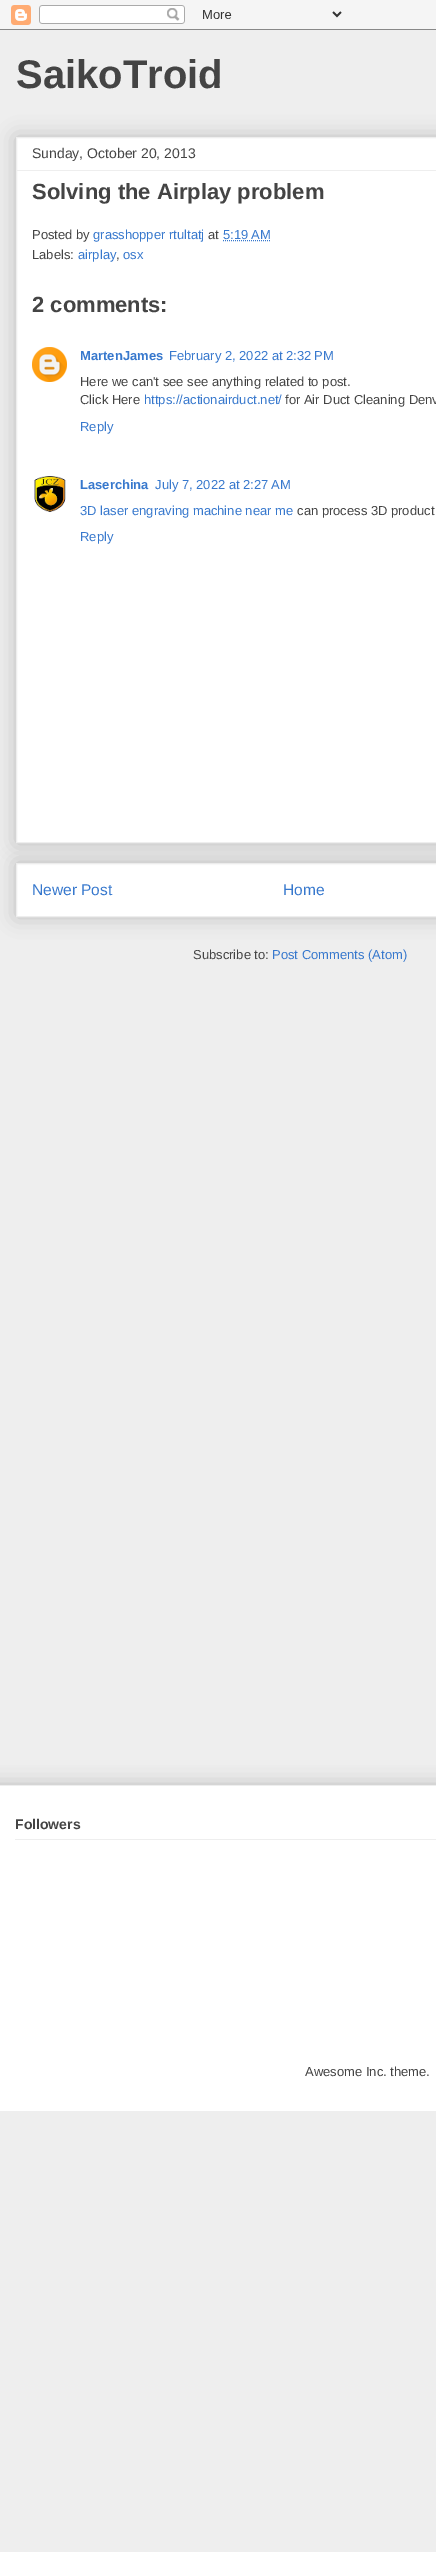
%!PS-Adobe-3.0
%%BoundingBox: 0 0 436 2552
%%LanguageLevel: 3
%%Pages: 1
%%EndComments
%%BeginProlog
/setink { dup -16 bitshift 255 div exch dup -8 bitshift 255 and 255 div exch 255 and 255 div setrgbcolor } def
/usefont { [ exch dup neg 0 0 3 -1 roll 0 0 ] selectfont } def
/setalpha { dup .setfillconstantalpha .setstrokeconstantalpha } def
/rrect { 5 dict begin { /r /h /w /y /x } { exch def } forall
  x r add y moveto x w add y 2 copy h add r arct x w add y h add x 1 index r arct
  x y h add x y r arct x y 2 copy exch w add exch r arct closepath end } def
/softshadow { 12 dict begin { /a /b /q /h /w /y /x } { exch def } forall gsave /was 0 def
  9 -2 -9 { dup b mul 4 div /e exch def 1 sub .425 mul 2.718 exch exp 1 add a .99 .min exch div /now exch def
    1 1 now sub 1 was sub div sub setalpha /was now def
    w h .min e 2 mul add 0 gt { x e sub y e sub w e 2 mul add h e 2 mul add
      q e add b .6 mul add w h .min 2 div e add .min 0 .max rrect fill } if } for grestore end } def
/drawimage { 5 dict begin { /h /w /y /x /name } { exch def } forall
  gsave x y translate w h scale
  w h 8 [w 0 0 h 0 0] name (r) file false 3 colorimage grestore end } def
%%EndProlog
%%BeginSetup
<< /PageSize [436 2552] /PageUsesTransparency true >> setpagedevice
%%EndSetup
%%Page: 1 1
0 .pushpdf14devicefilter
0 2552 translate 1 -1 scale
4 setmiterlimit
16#EEEEEE setink
0 0 436 2552 rectfill
(img1.raw) 0 0 436 30 drawimage
/LiberationSans-Bold 40 usefont
16#444444 setink
16 88 moveto (SaikoTroid) show
16#000000 setink
16 863 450 54 0 10 0.2 softshadow
16#FFFFFF setink
16.5 863.5 moveto 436.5 863.5 lineto 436.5 916.5 lineto 16.5 916.5 lineto closepath gsave fill grestore
16#EEEEEE setink
stroke
16#000000 setink
16 137 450 706 0 10 0.2 softshadow
16#FFFFFF setink
16.5 137.5 moveto 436.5 137.5 lineto 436.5 842.5 lineto 16.5 842.5 lineto closepath gsave fill grestore
16#EEEEEE setink
stroke
/LiberationSans-Regular 14 usefont
16#444444 setink
32 158 moveto (Sunday, October 20, 2013) show
16#EEEEEE setink
17 170 419 1 rectfill
/LiberationSans-Bold 22 usefont
16#444444 setink
32 199 moveto (Solving the Airplay problem) show
/LiberationSans-Regular 13 usefont
32 239 moveto (Posted by) show
16#3778CD setink
93 239 moveto (grasshopper rtultatj) show
16#444444 setink
208 239 moveto (at) show
16#3778CD setink
223 239 moveto (5:19 AM) show
[1 1] 0 setdash
223 240.5 moveto 270 240.5 lineto stroke
16#444444 setink
32 259 moveto (Labels:) show
16#3778CD setink
78 259 moveto (airplay) show
16#444444 setink
116 259 moveto (,) show
16#3778CD setink
123 259 moveto (osx) show
/LiberationSans-Bold 22 usefont
16#444444 setink
32 312 moveto (2 comments:) show
(img2.raw) 32 347 35 35 drawimage
/LiberationSans-Bold 13 usefont
16#3778CD setink
80 360 moveto (MartenJames) show
/LiberationSans-Regular 13 usefont
169 360 moveto (February 2, 2022 at 2:32 PM) show
16#444444 setink
80 386 moveto (Here we can't see see anything related to post.) show
80 404 moveto (Click Here) show
16#3778CD setink
144 404 moveto (https://actionairduct.net/) show
16#444444 setink
285 404 moveto (for Air Duct Cleaning Denv) show
16#3778CD setink
80 431 moveto (Reply) show
(img3.raw) 34 476 32 36 drawimage
/LiberationSans-Bold 13 usefont
80 489 moveto (Laserchina) show
/LiberationSans-Regular 13 usefont
155 489 moveto (July 7, 2022 at 2:27 AM) show
80 515 moveto (3D laser engraving machine near me) show
16#444444 setink
297 515 moveto (can process 3D product) show
16#3778CD setink
80 541 moveto (Reply) show
/LiberationSans-Regular 15.5 usefont
32 895 moveto (Newer Post) show
283 895 moveto (Home) show
/LiberationSans-Regular 13 usefont
16#444444 setink
193 959 moveto (Subscribe to:) show
16#3778CD setink
272 959 moveto (Post Comments \(Atom\)) show
gsave
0 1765 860 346 rectclip
16#000000 setink
-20 1785 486 326 0 10 0.2 softshadow
grestore
16#FFFFFF setink
0 1786 436 325 rectfill
16#EEEEEE setink
0 1785 436 1 rectfill
/LiberationSans-Bold 14 usefont
16#444444 setink
15 1829 moveto (Followers) show
16#EEEEEE setink
15 1839 421 1 rectfill
/LiberationSans-Regular 13 usefont
16#444444 setink
305 2076 moveto (Awesome Inc. theme.) show
.poppdf14devicefilter showpage
%%EOF
